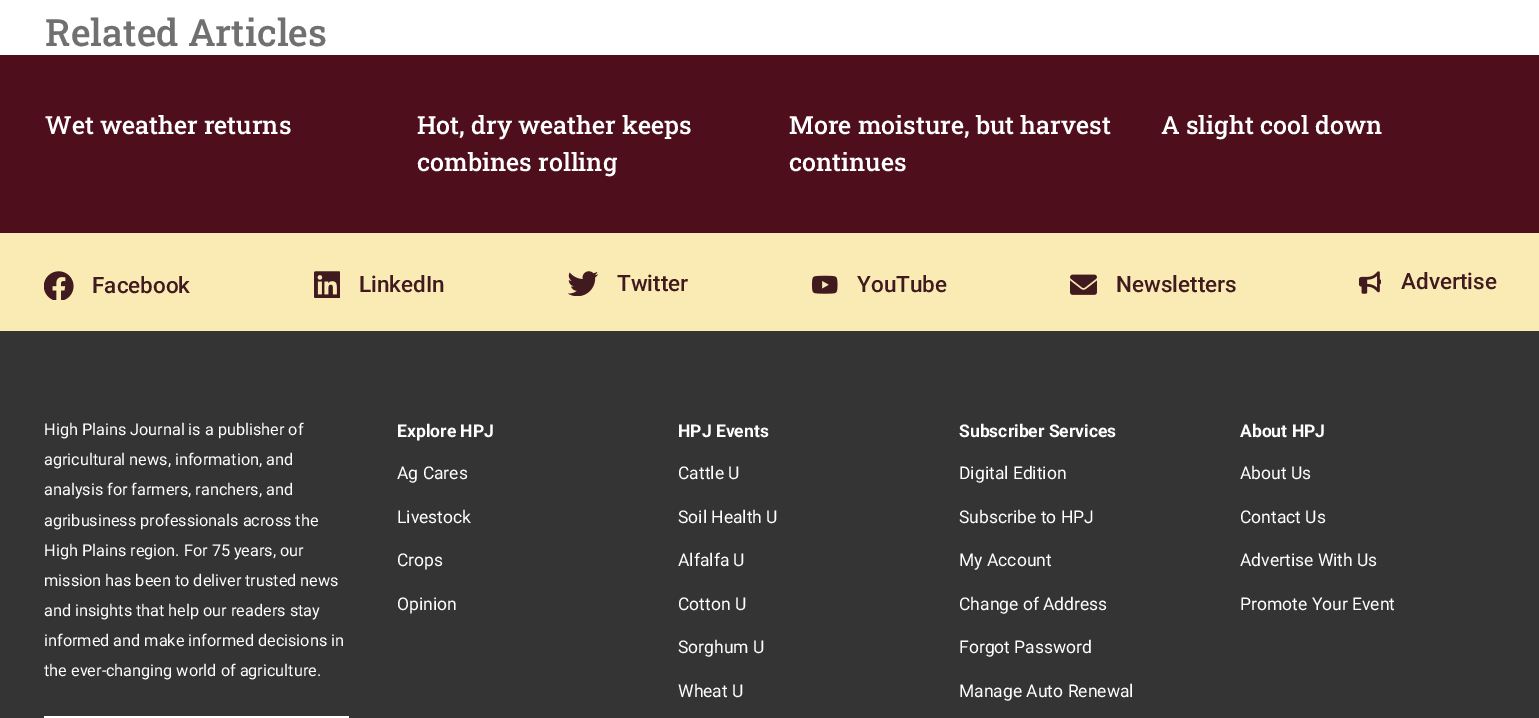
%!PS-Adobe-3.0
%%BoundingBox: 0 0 1539 718
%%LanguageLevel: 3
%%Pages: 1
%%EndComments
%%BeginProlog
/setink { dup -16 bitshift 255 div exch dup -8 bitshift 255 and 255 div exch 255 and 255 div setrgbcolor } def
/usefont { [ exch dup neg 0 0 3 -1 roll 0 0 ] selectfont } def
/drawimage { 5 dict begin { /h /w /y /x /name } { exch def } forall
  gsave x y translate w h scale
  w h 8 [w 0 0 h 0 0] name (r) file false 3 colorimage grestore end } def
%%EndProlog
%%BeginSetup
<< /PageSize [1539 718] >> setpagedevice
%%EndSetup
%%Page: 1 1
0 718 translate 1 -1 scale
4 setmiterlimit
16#FFFFFF setink
0 0 1539 718 rectfill
/RobotoSlab-Medium 37.5 usefont
16#707070 setink
45 46 moveto (Related Articles) show
16#4E0E1C setink
0 55 1539 178 rectfill
/RobotoSlab-Medium 25 usefont
16#FFFFFF setink
[
    [(Wet weather returns) 45 134]
    [(Hot, dry weather keeps) 417 134]
    [(combines rolling) 417 171]
    [(More moisture, but harvest) 789 134]
    [(continues) 789 171]
    [(A slight cool down) 1161 134]
] { aload pop moveto show } forall
16#333433 setink
0 331 1539 387 rectfill
16#FAEBB4 setink
0 233 1539 98 rectfill
(img1.raw) 44 271 30 29 drawimage
/Roboto-Medium 22.5 usefont
16#401A1E setink
92 293 moveto (Facebook) show
(img2.raw) 314 271 26 27 drawimage
359 292 moveto (LinkedIn) show
(img3.raw) 568 271 31 25 drawimage
617 291 moveto (Twitter) show
(img4.raw) 811 275 27 19 drawimage
857 292 moveto (YouTube) show
(img5.raw) 1070 274 27 21 drawimage
1116 292 moveto (Newsletters) show
(img6.raw) 1359 271 22 23 drawimage
1401 289 moveto (Advertise) show
/Roboto-Regular 16.25 usefont
16#FFFFFF setink
[
    [(High Plains Journal is a publisher of) 44 435]
    [(agricultural news, information, and) 44 465]
    [(analysis for farmers, ranchers, and) 44 495]
    [(agribusiness professionals across the) 44 526]
    [(High Plains region. For 75 years, our) 44 556]
    [(mission has been to deliver trusted news) 44 586]
    [(and insights that help our readers stay) 44 616]
    [(informed and make informed decisions in) 44 646]
    [(the ever-changing world of agriculture.) 44 676]
] { aload pop moveto show } forall
44 716 305 2 rectfill
/Roboto-Bold 17.5 usefont
397 437 moveto (Explore HPJ) show
/Roboto-Regular 17.5 usefont
[
    [(Ag Cares) 397 479]
    [(Livestock) 397 523]
    [(Crops) 397 566]
    [(Opinion) 397 610]
] { aload pop moveto show } forall
/Roboto-Bold 17.5 usefont
678 437 moveto (HPJ Events) show
/Roboto-Regular 17.5 usefont
[
    [(Cattle U) 678 479]
    [(Soil Health U) 678 523]
    [(Alfalfa U) 678 566]
    [(Cotton U) 678 610]
    [(Sorghum U) 678 653]
    [(Wheat U) 678 697]
] { aload pop moveto show } forall
/Roboto-Bold 17.5 usefont
959 437 moveto (Subscriber Services) show
/Roboto-Regular 17.5 usefont
[
    [(Digital Edition) 959 479]
    [(Subscribe to HPJ) 959 523]
    [(My Account) 959 566]
    [(Change of Address) 959 610]
    [(Forgot Password) 959 653]
    [(Manage Auto Renewal) 959 697]
] { aload pop moveto show } forall
/Roboto-Bold 17.5 usefont
1240 437 moveto (About HPJ) show
/Roboto-Regular 17.5 usefont
[
    [(About Us) 1240 479]
    [(Contact Us) 1240 523]
    [(Advertise With Us) 1240 566]
    [(Promote Your Event) 1240 610]
] { aload pop moveto show } forall
showpage
%%EOF
